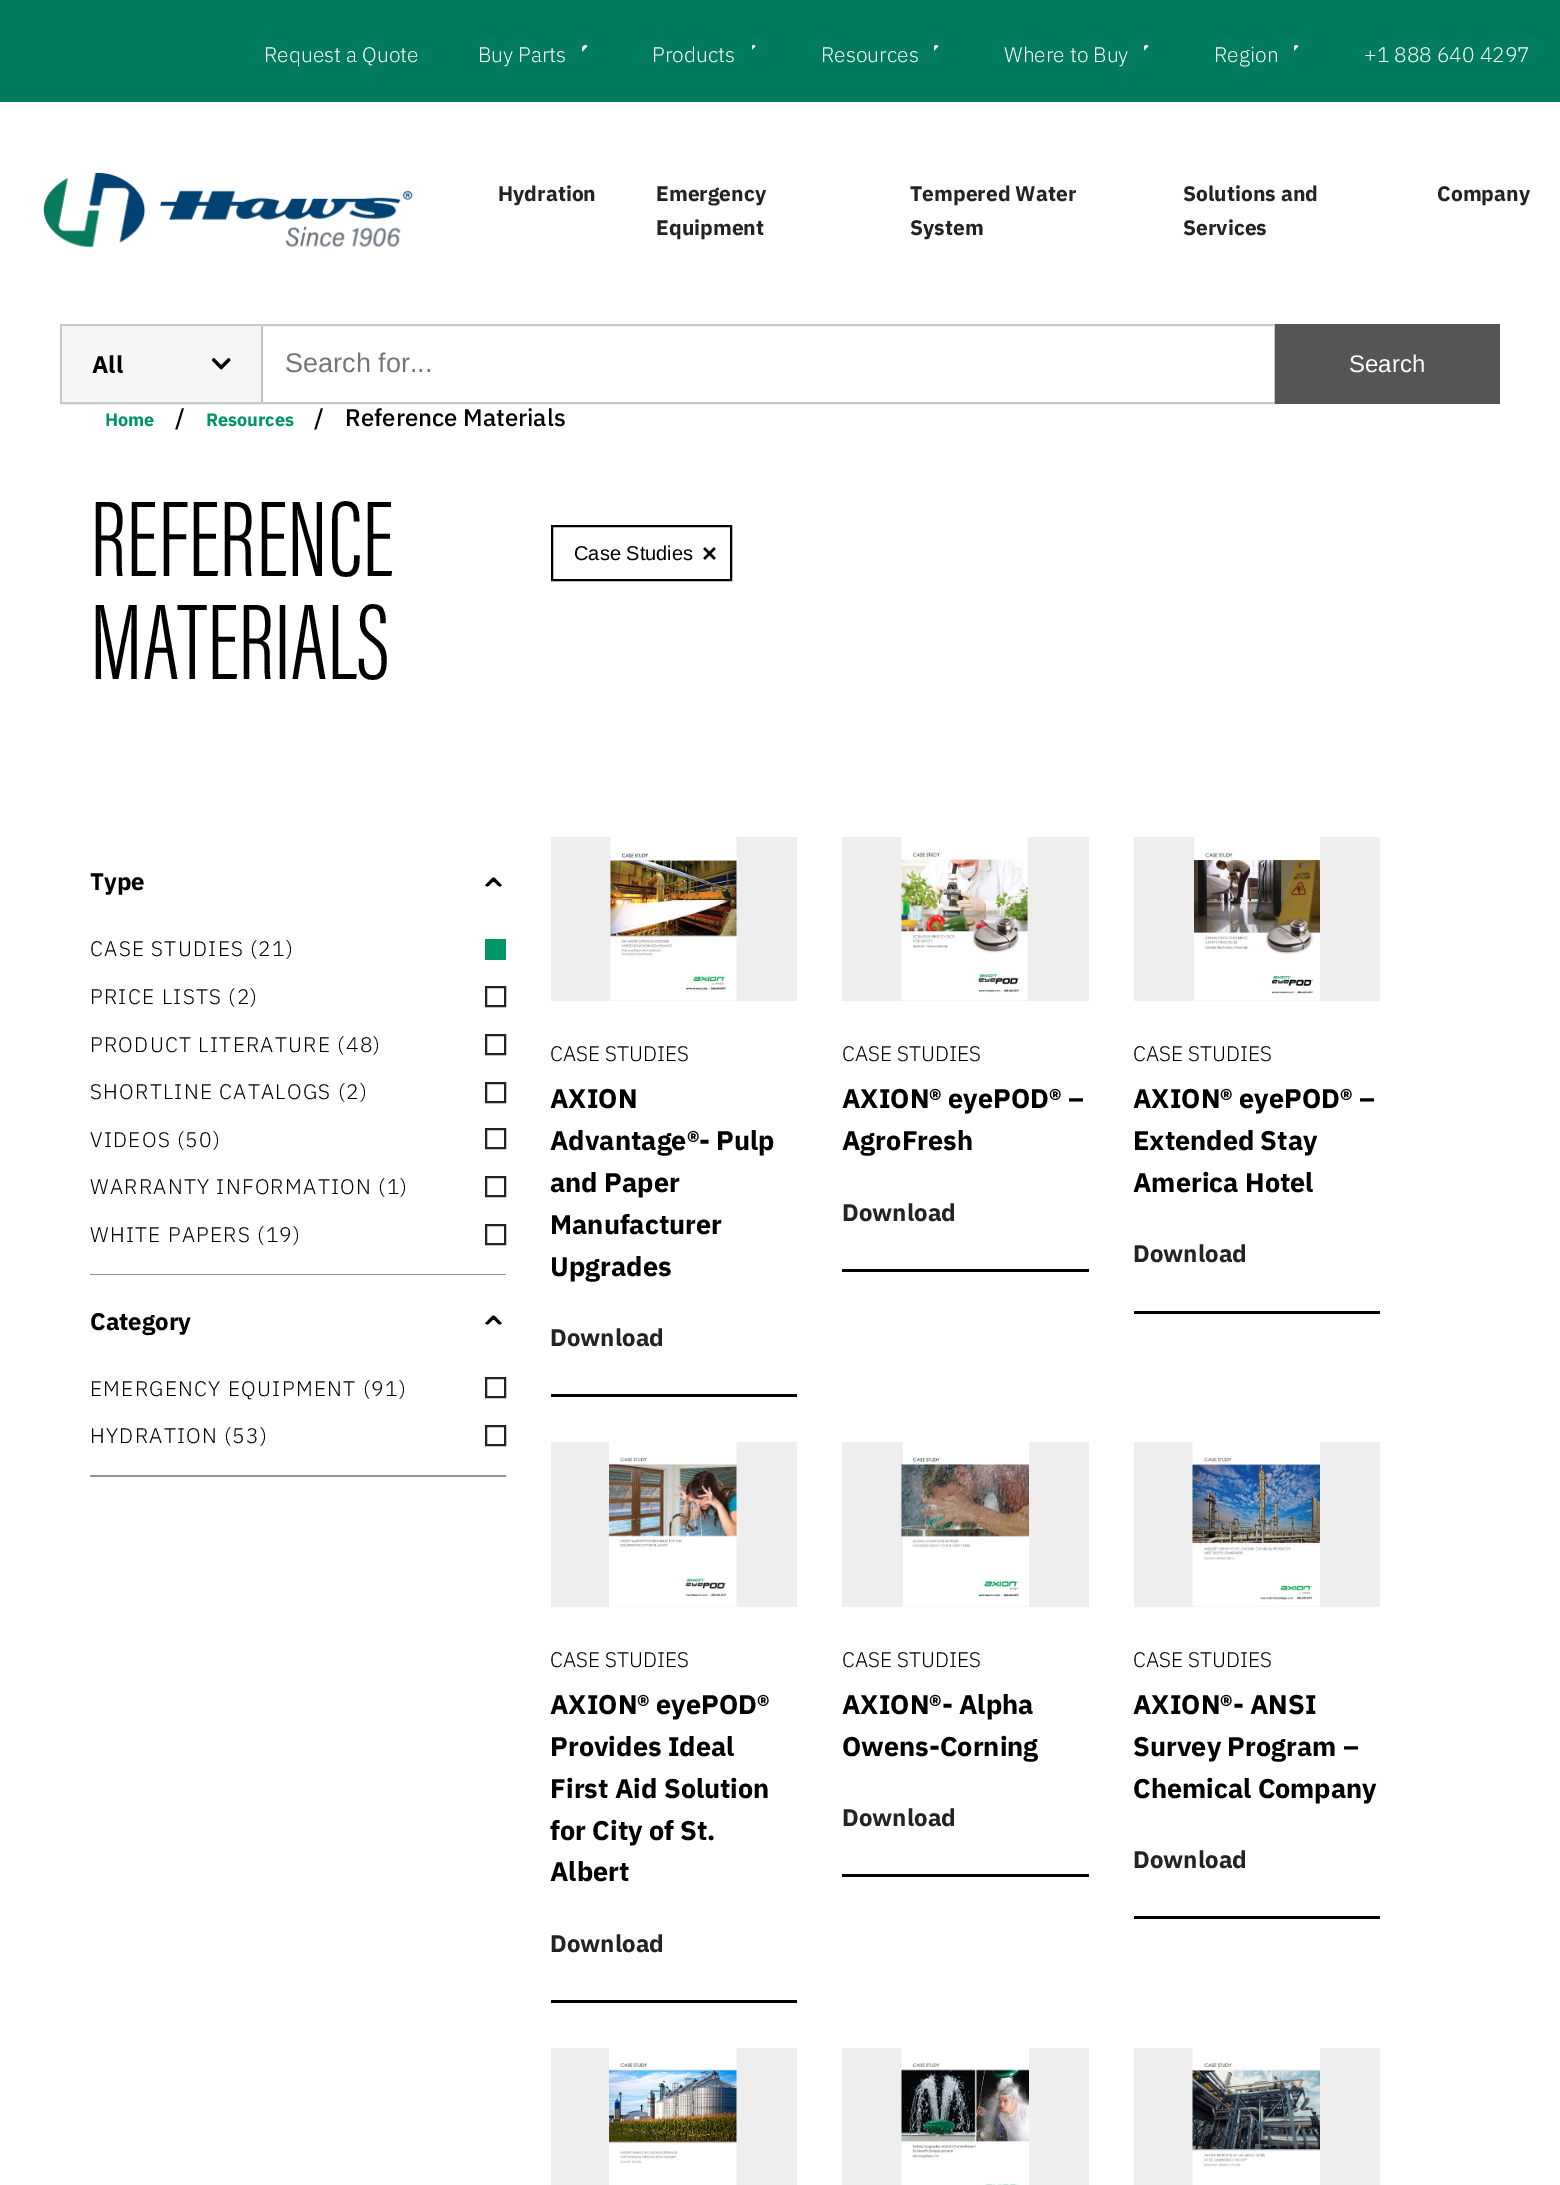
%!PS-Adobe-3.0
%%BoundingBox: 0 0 1560 2185
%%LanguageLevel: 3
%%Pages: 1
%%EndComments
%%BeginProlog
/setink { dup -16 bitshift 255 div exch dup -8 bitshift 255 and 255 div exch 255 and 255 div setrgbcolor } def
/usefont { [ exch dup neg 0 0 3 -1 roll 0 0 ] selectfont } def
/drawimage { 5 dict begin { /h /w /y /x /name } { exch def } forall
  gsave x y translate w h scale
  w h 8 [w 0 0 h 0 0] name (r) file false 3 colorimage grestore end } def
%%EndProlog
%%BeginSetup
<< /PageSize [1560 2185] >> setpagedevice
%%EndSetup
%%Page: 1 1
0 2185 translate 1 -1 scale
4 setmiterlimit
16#FFFFFF setink
0 0 1560 2185 rectfill
16#007B5F setink
0 0 1560 102 rectfill
/IBMPlexSans-Light 21 usefont
16#FFFFFF setink
264 62 moveto (Request a Quote) show
478 62 moveto (Buy Parts) show
(img1.raw) 582 45 6 7 drawimage
652 62 moveto (Products) show
(img2.raw) 752 45 4 5 drawimage
821 62 moveto (Resources) show
(img3.raw) 934 45 5 6 drawimage
1004 62 moveto (Where to Buy) show
(img3.raw) 1144 45 5 6 drawimage
1214 62 moveto (Region) show
(img3.raw) 1294 45 5 6 drawimage
1364 62 moveto (+1 888 640 4297) show
(img4.raw) 43 172 370 76 drawimage
/IBMPlexSans-Bold 21 usefont
16#232323 setink
[
    [(Hydration) 498 201]
    [(Emergency) 656 201]
    [(Equipment) 656 235]
    [(Tempered Water) 910 201]
    [(System) 910 235]
    [(Solutions and) 1183 201]
    [(Services) 1183 235]
    [(Company) 1437 201]
] { aload pop moveto show } forall
16#C8C8C8 setink
2 setlinewidth
61 325 1213 78 rectstroke
16#F6F6F6 setink
62 326 199 76 rectfill
16#C1C1C1 setink
261 326 2 76 rectfill
/IBMPlexSans-Bold 24 usefont
16#000000 setink
92 373 moveto (All) show
(img5.raw) 212 358 19 12 drawimage
16#FFFFFF setink
1273 326 1 76 rectfill
/LiberationSans-Regular 27 usefont
16#757575 setink
285 372 moveto (Search for...) show
16#555555 setink
1275 324 225 80 rectfill
/LiberationSans-Regular 24 usefont
16#FFFFFF setink
1349 372 moveto (Search) show
/IBMPlexSans-Bold 18 usefont
16#009566 setink
105 426 moveto (Home) show
/IBMPlexSans-Medium 24 usefont
16#000000 setink
175 426 moveto (/) show
/IBMPlexSans-Bold 18 usefont
16#009566 setink
206 426 moveto (Resources) show
/IBMPlexSans-Medium 24 usefont
16#000000 setink
314 426 moveto (/) show
345 426 moveto (Reference Materials) show
/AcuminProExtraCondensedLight-Light 111 usefont
90 576 moveto (REFERENCE) show
90 679 moveto (MATERIALS) show
552 526 179 54 rectstroke
/LiberationSans-Regular 20 usefont
574 560 moveto (Case Studies) show
(img6.raw) 703 547 13 13 drawimage
16#919191 setink
90 1274 416 1 rectfill
/IBMPlexSans-Bold 24 usefont
16#000000 setink
90 890 moveto (Type) show
(img7.raw) 485 877 17 10 drawimage
/IBMPlexSans-Light 21 usefont
90 956 moveto 1.25 0 (CASE STUDIES \(21\)) ashow
16#009566 setink
485 939 21 21 rectfill
16#000000 setink
90 1004 moveto 1.25 0 (PRICE LISTS \(2\)) ashow
16#232323 setink
486 987 19 19 rectstroke
16#000000 setink
90 1052 moveto 1.25 0 (PRODUCT LITERATURE \(48\)) ashow
16#232323 setink
486 1035 19 19 rectstroke
16#000000 setink
90 1099 moveto 1.25 0 (SHORTLINE CATALOGS \(2\)) ashow
16#232323 setink
486 1083 19 19 rectstroke
16#000000 setink
90 1147 moveto 1.25 0 (VIDEOS \(50\)) ashow
16#232323 setink
486 1129 19 19 rectstroke
16#000000 setink
90 1194 moveto 1.25 0 (WARRANTY INFORMATION \(1\)) ashow
16#232323 setink
486 1177 19 19 rectstroke
16#000000 setink
90 1242 moveto 1.25 0 (WHITE PAPERS \(19\)) ashow
16#232323 setink
486 1225 19 19 rectstroke
16#919191 setink
90 1475 416 2 rectfill
/IBMPlexSans-Bold 24 usefont
16#000000 setink
90 1330 moveto (Category) show
(img7.raw) 485 1315 17 10 drawimage
/IBMPlexSans-Light 21 usefont
90 1396 moveto 1.25 0 (EMERGENCY EQUIPMENT \(91\)) ashow
16#232323 setink
486 1378 19 19 rectstroke
16#000000 setink
90 1443 moveto 1.25 0 (HYDRATION \(53\)) ashow
16#232323 setink
486 1426 19 19 rectstroke
16#EEEEEE setink
551 837 246 164 rectfill
(img8.raw) 610 837 127 164 drawimage
16#000000 setink
550 1061 moveto (CASE STUDIES) show
/IBMPlexSans-Bold 27 usefont
[
    [(AXION) 550 1108]
    [(Advantage®- Pulp) 550 1150]
    [(and Paper) 550 1192]
    [(Manufacturer) 550 1234]
    [(Upgrades) 550 1276]
] { aload pop moveto show } forall
551 1394 246 3 rectfill
/IBMPlexSans-Bold 24 usefont
16#232323 setink
550 1346 moveto (Download) show
16#EEEEEE setink
842 837 247 164 rectfill
(img9.raw) 901 837 127 164 drawimage
/IBMPlexSans-Light 21 usefont
16#000000 setink
842 1061 moveto (CASE STUDIES) show
/IBMPlexSans-Bold 27 usefont
842 1108 moveto (AXION® eyePOD® –) show
842 1150 moveto (AgroFresh) show
842 1269 247 3 rectfill
/IBMPlexSans-Bold 24 usefont
16#232323 setink
842 1221 moveto (Download) show
16#EEEEEE setink
1134 837 246 164 rectfill
(img10.raw) 1194 837 126 164 drawimage
/IBMPlexSans-Light 21 usefont
16#000000 setink
1133 1061 moveto (CASE STUDIES) show
/IBMPlexSans-Bold 27 usefont
[
    [(AXION® eyePOD® –) 1133 1108]
    [(Extended Stay) 1133 1150]
    [(America Hotel) 1133 1192]
] { aload pop moveto show } forall
1134 1311 246 3 rectfill
/IBMPlexSans-Bold 24 usefont
16#232323 setink
1133 1262 moveto (Download) show
16#EEEEEE setink
551 1442 246 165 rectfill
(img11.raw) 609 1442 128 165 drawimage
/IBMPlexSans-Light 21 usefont
16#000000 setink
550 1667 moveto (CASE STUDIES) show
/IBMPlexSans-Bold 27 usefont
[
    [(AXION® eyePOD®) 550 1714]
    [(Provides Ideal) 550 1756]
    [(First Aid Solution) 550 1798]
    [(for City of St.) 550 1840]
    [(Albert) 550 1881]
] { aload pop moveto show } forall
551 2000 246 3 rectfill
/IBMPlexSans-Bold 24 usefont
16#232323 setink
550 1952 moveto (Download) show
16#EEEEEE setink
842 1442 247 165 rectfill
(img12.raw) 901 1441 128 166 drawimage
/IBMPlexSans-Light 21 usefont
16#000000 setink
842 1667 moveto (CASE STUDIES) show
/IBMPlexSans-Bold 27 usefont
842 1714 moveto (AXION®- Alpha) show
842 1756 moveto (Owens-Corning) show
842 1874 247 3 rectfill
/IBMPlexSans-Bold 24 usefont
16#232323 setink
842 1826 moveto (Download) show
16#EEEEEE setink
1134 1442 246 165 rectfill
(img13.raw) 1192 1442 128 165 drawimage
/IBMPlexSans-Light 21 usefont
16#000000 setink
1133 1667 moveto (CASE STUDIES) show
/IBMPlexSans-Bold 27 usefont
[
    [(AXION®- ANSI) 1133 1714]
    [(Survey Program –) 1133 1756]
    [(Chemical Company) 1133 1798]
] { aload pop moveto show } forall
1134 1916 246 3 rectfill
/IBMPlexSans-Bold 24 usefont
16#232323 setink
1133 1868 moveto (Download) show
16#EEEEEE setink
551 2048 246 137 rectfill
(img14.raw) 609 2048 128 137 drawimage
842 2048 247 137 rectfill
(img15.raw) 901 2048 128 137 drawimage
1134 2048 246 137 rectfill
(img16.raw) 1192 2048 128 137 drawimage
showpage
%%EOF
